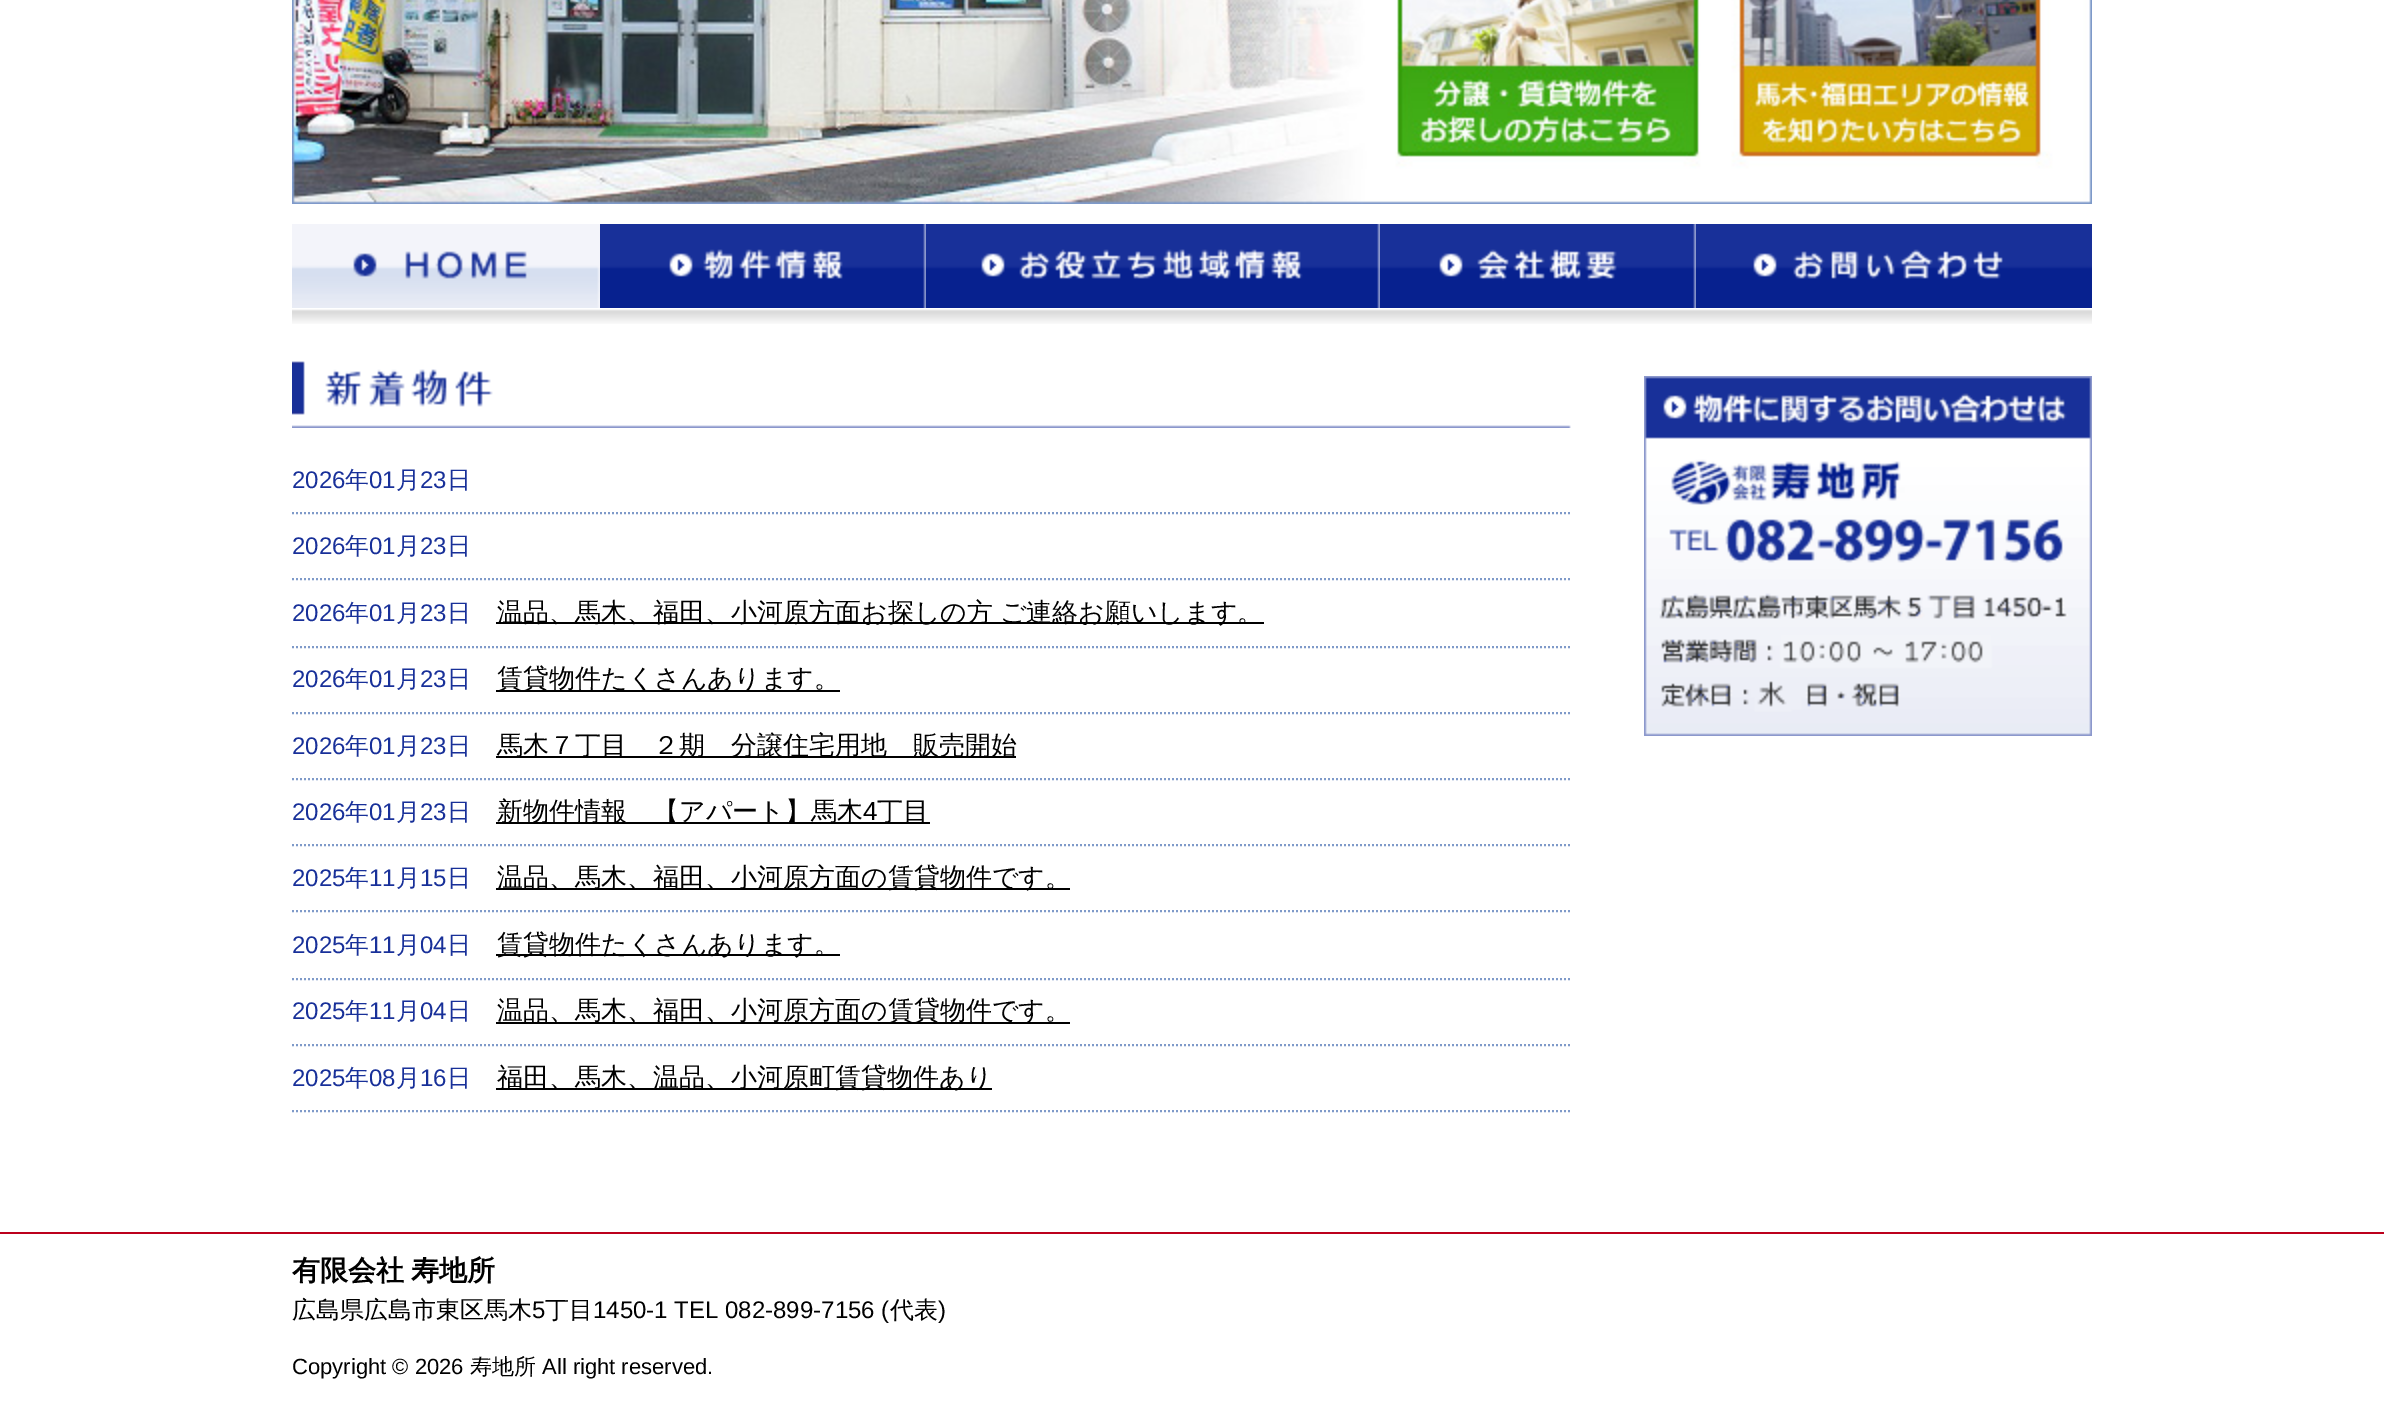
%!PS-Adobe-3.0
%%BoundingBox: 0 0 2384 1404
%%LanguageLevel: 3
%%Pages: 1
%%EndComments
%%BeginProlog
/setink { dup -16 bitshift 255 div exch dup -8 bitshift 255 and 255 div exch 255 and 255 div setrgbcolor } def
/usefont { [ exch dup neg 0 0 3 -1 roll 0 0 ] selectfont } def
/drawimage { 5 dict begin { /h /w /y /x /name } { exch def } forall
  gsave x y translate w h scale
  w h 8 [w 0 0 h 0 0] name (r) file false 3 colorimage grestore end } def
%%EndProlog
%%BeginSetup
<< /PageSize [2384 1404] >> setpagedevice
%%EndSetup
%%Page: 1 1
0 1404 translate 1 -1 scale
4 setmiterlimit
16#FFFFFF setink
0 0 2384 1404 rectfill
(img1.raw) 292 0 1800 204 drawimage
(img2.raw) 292 309 1800 15 drawimage
(img3.raw) 292 224 308 84 drawimage
(img4.raw) 600 224 326 84 drawimage
(img5.raw) 926 224 454 84 drawimage
(img6.raw) 1380 224 316 84 drawimage
(img7.raw) 1696 224 396 84 drawimage
(img8.raw) 292 361 1279 67 drawimage
16#7F9AC9 setink
2 setlinewidth
[2 2] 0 setdash
292 513 moveto 1572 513 lineto stroke
/LiberationSans-Regular 24 usefont
16#183099 setink
292 488 moveto (2026) show
/WenQuanYiZenHei-Medium 24 usefont
345 488 moveto (年) show
/LiberationSans-Regular 24 usefont
369 488 moveto (01) show
/WenQuanYiZenHei-Medium 24 usefont
396 488 moveto (月) show
/LiberationSans-Regular 24 usefont
420 488 moveto (23) show
/WenQuanYiZenHei-Medium 24 usefont
447 488 moveto (日) show
16#7F9AC9 setink
292 579 moveto 1572 579 lineto stroke
/LiberationSans-Regular 24 usefont
16#183099 setink
292 554 moveto (2026) show
/WenQuanYiZenHei-Medium 24 usefont
345 554 moveto (年) show
/LiberationSans-Regular 24 usefont
369 554 moveto (01) show
/WenQuanYiZenHei-Medium 24 usefont
396 554 moveto (月) show
/LiberationSans-Regular 24 usefont
420 554 moveto (23) show
/WenQuanYiZenHei-Medium 24 usefont
447 554 moveto (日) show
16#7F9AC9 setink
292 647 moveto 1572 647 lineto stroke
/LiberationSans-Regular 24 usefont
16#183099 setink
292 621 moveto (2026) show
/WenQuanYiZenHei-Medium 24 usefont
345 621 moveto (年) show
/LiberationSans-Regular 24 usefont
369 621 moveto (01) show
/WenQuanYiZenHei-Medium 24 usefont
396 621 moveto (月) show
/LiberationSans-Regular 24 usefont
420 621 moveto (23) show
/WenQuanYiZenHei-Medium 24 usefont
447 621 moveto (日) show
16#000000 setink
496 622 768 2 rectfill
/WenQuanYiZenHei-Medium 26 usefont
497 621 moveto -1 0 32 (温品、馬木、福田、小河原方面お探しの方 ご連絡お願いします。) widthshow
16#7F9AC9 setink
292 713 moveto 1572 713 lineto stroke
/LiberationSans-Regular 24 usefont
16#183099 setink
292 687 moveto (2026) show
/WenQuanYiZenHei-Medium 24 usefont
345 687 moveto (年) show
/LiberationSans-Regular 24 usefont
369 687 moveto (01) show
/WenQuanYiZenHei-Medium 24 usefont
396 687 moveto (月) show
/LiberationSans-Regular 24 usefont
420 687 moveto (23) show
/WenQuanYiZenHei-Medium 24 usefont
447 687 moveto (日) show
16#000000 setink
496 690 344 2 rectfill
/WenQuanYiZenHei-Medium 26 usefont
497 687 moveto (賃貸物件たくさんあります。) show
16#7F9AC9 setink
292 779 moveto 1572 779 lineto stroke
/LiberationSans-Regular 24 usefont
16#183099 setink
292 754 moveto (2026) show
/WenQuanYiZenHei-Medium 24 usefont
345 754 moveto (年) show
/LiberationSans-Regular 24 usefont
369 754 moveto (01) show
/WenQuanYiZenHei-Medium 24 usefont
396 754 moveto (月) show
/LiberationSans-Regular 24 usefont
420 754 moveto (23) show
/WenQuanYiZenHei-Medium 24 usefont
447 754 moveto (日) show
16#000000 setink
496 756 520 2 rectfill
/WenQuanYiZenHei-Medium 26 usefont
497 754 moveto (馬木７丁目　２期　分譲住宅用地　販売開始) show
16#7F9AC9 setink
292 845 moveto 1572 845 lineto stroke
/LiberationSans-Regular 24 usefont
16#183099 setink
292 820 moveto (2026) show
/WenQuanYiZenHei-Medium 24 usefont
345 820 moveto (年) show
/LiberationSans-Regular 24 usefont
369 820 moveto (01) show
/WenQuanYiZenHei-Medium 24 usefont
396 820 moveto (月) show
/LiberationSans-Regular 24 usefont
420 820 moveto (23) show
/WenQuanYiZenHei-Medium 24 usefont
447 820 moveto (日) show
16#000000 setink
496 822 434 2 rectfill
/WenQuanYiZenHei-Medium 26 usefont
497 820 moveto (新物件情報　【アパート】馬木) show
/LiberationSans-Regular 26 usefont
863 820 moveto (4) show
/WenQuanYiZenHei-Medium 26 usefont
877 820 moveto (丁目) show
16#7F9AC9 setink
292 911 moveto 1572 911 lineto stroke
/LiberationSans-Regular 24 usefont
16#183099 setink
292 886 moveto (2025) show
/WenQuanYiZenHei-Medium 24 usefont
345 886 moveto (年) show
/LiberationSans-Regular 24 usefont
369 886 moveto (11) show
/WenQuanYiZenHei-Medium 24 usefont
396 886 moveto (月) show
/LiberationSans-Regular 24 usefont
420 886 moveto (15) show
/WenQuanYiZenHei-Medium 24 usefont
447 886 moveto (日) show
16#000000 setink
496 888 574 2 rectfill
/WenQuanYiZenHei-Medium 26 usefont
497 886 moveto (温品、馬木、福田、小河原方面の賃貸物件です。) show
16#7F9AC9 setink
292 979 moveto 1572 979 lineto stroke
/LiberationSans-Regular 24 usefont
16#183099 setink
292 953 moveto (2025) show
/WenQuanYiZenHei-Medium 24 usefont
345 953 moveto (年) show
/LiberationSans-Regular 24 usefont
369 953 moveto (11) show
/WenQuanYiZenHei-Medium 24 usefont
396 953 moveto (月) show
/LiberationSans-Regular 24 usefont
420 953 moveto (04) show
/WenQuanYiZenHei-Medium 24 usefont
447 953 moveto (日) show
16#000000 setink
496 954 344 2 rectfill
/WenQuanYiZenHei-Medium 26 usefont
497 953 moveto (賃貸物件たくさんあります。) show
16#7F9AC9 setink
292 1045 moveto 1572 1045 lineto stroke
/LiberationSans-Regular 24 usefont
16#183099 setink
292 1019 moveto (2025) show
/WenQuanYiZenHei-Medium 24 usefont
345 1019 moveto (年) show
/LiberationSans-Regular 24 usefont
369 1019 moveto (11) show
/WenQuanYiZenHei-Medium 24 usefont
396 1019 moveto (月) show
/LiberationSans-Regular 24 usefont
420 1019 moveto (04) show
/WenQuanYiZenHei-Medium 24 usefont
447 1019 moveto (日) show
16#000000 setink
496 1022 574 2 rectfill
/WenQuanYiZenHei-Medium 26 usefont
497 1019 moveto (温品、馬木、福田、小河原方面の賃貸物件です。) show
16#7F9AC9 setink
292 1111 moveto 1572 1111 lineto stroke
/LiberationSans-Regular 24 usefont
16#183099 setink
292 1086 moveto (2025) show
/WenQuanYiZenHei-Medium 24 usefont
345 1086 moveto (年) show
/LiberationSans-Regular 24 usefont
369 1086 moveto (08) show
/WenQuanYiZenHei-Medium 24 usefont
396 1086 moveto (月) show
/LiberationSans-Regular 24 usefont
420 1086 moveto (16) show
/WenQuanYiZenHei-Medium 24 usefont
447 1086 moveto (日) show
16#000000 setink
496 1088 496 2 rectfill
/WenQuanYiZenHei-Medium 26 usefont
497 1086 moveto (福田、馬木、温品、小河原町賃貸物件あり) show
(img9.raw) 1644 376 448 360 drawimage
16#BC001C setink
0 1232 2384 2 rectfill
/WenQuanYiZenHei-Bold 28 usefont
16#000000 setink
292 1280 moveto -1 0 32 (有限会社 寿地所) widthshow
/WenQuanYiZenHei-Medium 24 usefont
292 1318 moveto (広島県広島市東区馬木) show
/LiberationSans-Regular 24 usefont
532 1318 moveto (5) show
/WenQuanYiZenHei-Medium 24 usefont
545 1318 moveto (丁目) show
/LiberationSans-Regular 24 usefont
593 1318 moveto (1450-1 TEL 082-899-7156 \() show
/WenQuanYiZenHei-Medium 24 usefont
890 1318 moveto (代表) show
/LiberationSans-Regular 24 usefont
938 1318 moveto (\)) show
/LiberationSans-Regular 22 usefont
292 1374 moveto (Copyright © 2026) show
/WenQuanYiZenHei-Medium 22 usefont
470 1374 moveto (寿地所) show
/LiberationSans-Regular 22 usefont
542 1374 moveto (All right reserved.) show
showpage
%%EOF
